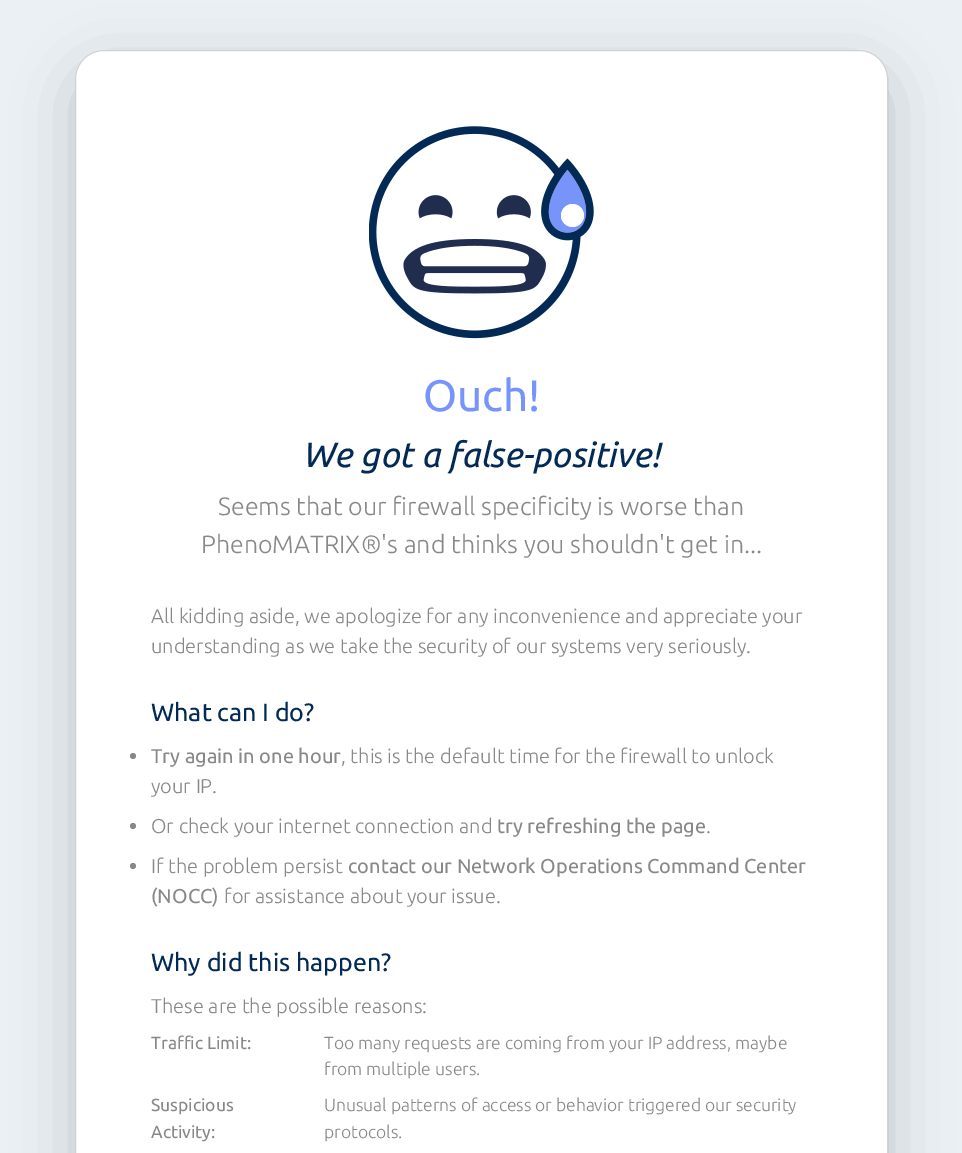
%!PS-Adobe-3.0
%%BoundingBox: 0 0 962 1153
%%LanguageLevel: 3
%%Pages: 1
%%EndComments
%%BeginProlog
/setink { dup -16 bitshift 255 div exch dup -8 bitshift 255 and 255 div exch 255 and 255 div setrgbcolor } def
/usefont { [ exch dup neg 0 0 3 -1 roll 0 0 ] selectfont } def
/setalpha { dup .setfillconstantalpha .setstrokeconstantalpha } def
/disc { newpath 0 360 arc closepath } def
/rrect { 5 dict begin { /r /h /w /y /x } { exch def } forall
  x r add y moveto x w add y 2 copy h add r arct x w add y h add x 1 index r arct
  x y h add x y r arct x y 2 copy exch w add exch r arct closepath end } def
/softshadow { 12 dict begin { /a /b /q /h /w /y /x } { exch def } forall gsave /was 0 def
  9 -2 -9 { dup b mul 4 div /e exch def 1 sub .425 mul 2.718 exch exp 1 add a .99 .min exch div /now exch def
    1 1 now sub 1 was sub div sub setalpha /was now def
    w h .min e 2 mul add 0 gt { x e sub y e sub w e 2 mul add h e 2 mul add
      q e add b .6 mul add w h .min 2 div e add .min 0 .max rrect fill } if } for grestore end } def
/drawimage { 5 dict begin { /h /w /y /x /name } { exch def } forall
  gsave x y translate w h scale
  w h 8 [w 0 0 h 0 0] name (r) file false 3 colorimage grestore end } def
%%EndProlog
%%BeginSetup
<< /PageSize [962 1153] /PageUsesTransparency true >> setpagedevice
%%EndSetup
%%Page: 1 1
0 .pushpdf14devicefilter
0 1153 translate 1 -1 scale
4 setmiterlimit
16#EBF0F5 setink
0 0 962 1153 rectfill
16#000000 setink
75 70 813 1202 29 30 0.18 softshadow
16#FFFFFF setink
75 50 813 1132 29 rrect fill
0.18 setalpha
16#000000 setink
75.5 50.5 812 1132 28.5 rrect stroke
1 setalpha
(img1.raw) 369 126 225 213 drawimage
/Ubuntu-Regular 44 usefont
16#7794FB setink
423 411 moveto (Ouch!) show
/Ubuntu-Italic 35 usefont
16#022A55 setink
302 467 moveto (We got a false-positive!) show
/Ubuntu-Light 25 usefont
16#888888 setink
218 515 moveto (Seems that our firewall specificity is worse than) show
201 553 moveto (PhenoMATRIX®'s and thinks you shouldn't get in...) show
/Ubuntu-Light 20 usefont
151 623 moveto (All kidding aside, we apologize for any inconvenience and appreciate your) show
151 653 moveto (understanding as we take the security of our systems very seriously.) show
/Ubuntu-Regular 25 usefont
16#022A55 setink
151 721 moveto (What can I do?) show
16#888888 setink
133 756 3 disc fill
/Ubuntu-Regular 20 usefont
151 763 moveto (Try again in one hour) show
/Ubuntu-Light 20 usefont
341 763 moveto (, this is the default time for the firewall to unlock) show
151 793 moveto (your IP.) show
133 826 3 disc fill
151 833 moveto (Or check your internet connection and) show
/Ubuntu-Regular 20 usefont
497 833 moveto (try refreshing the page) show
/Ubuntu-Light 20 usefont
706 833 moveto (.) show
133 866 3 disc fill
151 873 moveto (If the problem persist) show
/Ubuntu-Regular 20 usefont
348 873 moveto (contact our Network Operations Command Center) show
151 903 moveto (\(NOCC\)) show
/Ubuntu-Light 20 usefont
224 903 moveto (for assistance about your issue.) show
/Ubuntu-Regular 25 usefont
16#022A55 setink
151 971 moveto (Why did this happen?) show
/Ubuntu-Light 20 usefont
16#888888 setink
151 1013 moveto (These are the possible reasons:) show
/Ubuntu-Regular 17.5 usefont
151 1049 moveto (Traffic Limit:) show
/Ubuntu-Light 17.5 usefont
324 1049 moveto (Too many requests are coming from your IP address, maybe) show
324 1075 moveto (from multiple users.) show
/Ubuntu-Regular 17.5 usefont
151 1111 moveto (Suspicious) show
151 1138 moveto (Activity:) show
/Ubuntu-Light 17.5 usefont
324 1111 moveto (Unusual patterns of access or behavior triggered our security) show
324 1138 moveto (protocols.) show
.poppdf14devicefilter showpage
%%EOF
